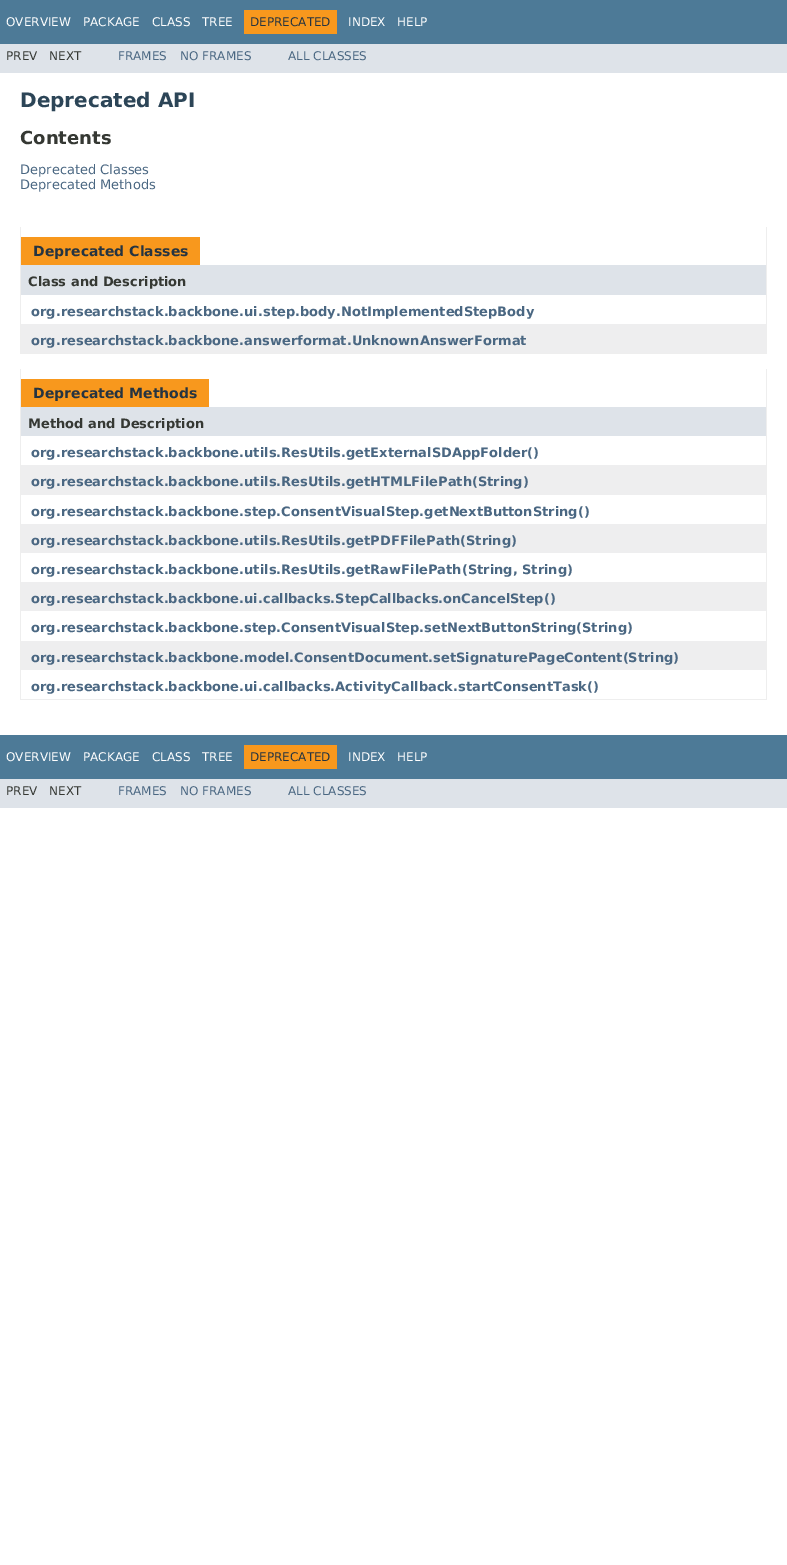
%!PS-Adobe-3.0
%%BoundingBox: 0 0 787 1565
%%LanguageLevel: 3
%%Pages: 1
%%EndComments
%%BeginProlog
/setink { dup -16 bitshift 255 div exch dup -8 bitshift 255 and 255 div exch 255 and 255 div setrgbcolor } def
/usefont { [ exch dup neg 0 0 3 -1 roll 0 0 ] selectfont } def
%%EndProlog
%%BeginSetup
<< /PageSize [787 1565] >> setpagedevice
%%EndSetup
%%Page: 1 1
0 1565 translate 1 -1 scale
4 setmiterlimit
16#FFFFFF setink
0 0 787 1565 rectfill
16#4D7A97 setink
0 0 787 44 rectfill
/DejaVuSans-Regular 12 usefont
16#FFFFFF setink
[
    [(OVERVIEW) 6 26]
    [(PACKAGE) 83 26]
    [(CLASS) 152 26]
    [(TREE) 202 26]
] { aload pop moveto show } forall
16#F8981D setink
244 10 93 24 rectfill
16#253441 setink
250 26 moveto (DEPRECATED) show
16#FFFFFF setink
348 26 moveto (INDEX) show
397 26 moveto (HELP) show
16#DEE3E9 setink
0 44 787 29 rectfill
16#353833 setink
6 60 moveto (PREV) show
49 60 moveto (NEXT) show
16#4A6782 setink
[
    [(FRAMES) 118 60]
    [(NO FRAMES) 180 60]
    [(ALL CLASSES) 288 60]
] { aload pop moveto show } forall
/DejaVuSans-Bold 20 usefont
16#2C4557 setink
20 107 moveto (Deprecated API) show
/DejaVuSans-Bold 18 usefont
16#353833 setink
20 144 moveto (Contents) show
/DejaVuSans-Regular 13 usefont
16#4A6782 setink
20 174 moveto (Deprecated Classes) show
20 189 moveto (Deprecated Methods) show
[
    [766 227 1 127 16#EEEEEE]
    [20 353 747 1 16#EEEEEE]
    [20 227 1 127 16#EEEEEE]
    [21 237 179 28 16#F8981D]
] { aload pop setink rectfill } forall
/DejaVuSans-Bold 14 usefont
16#253441 setink
33 256 moveto (Deprecated Classes) show
16#DEE3E9 setink
21 265 745 30 rectfill
/DejaVuSans-Bold 13 usefont
16#353833 setink
28 286 moveto (Class and Description) show
16#4A6782 setink
31 316 moveto (org.researchstack.backbone.ui.step.body.NotImplementedStepBody) show
16#EEEEEF setink
21 324 745 29 rectfill
16#4A6782 setink
31 345 moveto (org.researchstack.backbone.answerformat.UnknownAnswerFormat) show
[
    [766 369 1 331 16#EEEEEE]
    [20 699 747 1 16#EEEEEE]
    [20 369 1 331 16#EEEEEE]
    [21 379 188 28 16#F8981D]
] { aload pop setink rectfill } forall
/DejaVuSans-Bold 14 usefont
16#253441 setink
33 398 moveto (Deprecated Methods) show
16#DEE3E9 setink
21 407 745 29 rectfill
/DejaVuSans-Bold 13 usefont
16#353833 setink
28 428 moveto (Method and Description) show
16#4A6782 setink
31 457 moveto (org.researchstack.backbone.utils.ResUtils.getExternalSDAppFolder\(\)) show
16#EEEEEF setink
21 465 745 30 rectfill
16#4A6782 setink
31 486 moveto (org.researchstack.backbone.utils.ResUtils.getHTMLFilePath\(String\)) show
31 516 moveto (org.researchstack.backbone.step.ConsentVisualStep.getNextButtonString\(\)) show
16#EEEEEF setink
21 524 745 29 rectfill
16#4A6782 setink
31 545 moveto (org.researchstack.backbone.utils.ResUtils.getPDFFilePath\(String\)) show
31 574 moveto (org.researchstack.backbone.utils.ResUtils.getRawFilePath\(String, String\)) show
16#EEEEEF setink
21 582 745 29 rectfill
16#4A6782 setink
31 603 moveto (org.researchstack.backbone.ui.callbacks.StepCallbacks.onCancelStep\(\)) show
31 632 moveto (org.researchstack.backbone.step.ConsentVisualStep.setNextButtonString\(String\)) show
16#EEEEEF setink
21 641 745 29 rectfill
16#4A6782 setink
31 662 moveto (org.researchstack.backbone.model.ConsentDocument.setSignaturePageContent\(String\)) show
31 691 moveto (org.researchstack.backbone.ui.callbacks.ActivityCallback.startConsentTask\(\)) show
16#4D7A97 setink
0 735 787 44 rectfill
/DejaVuSans-Regular 12 usefont
16#FFFFFF setink
[
    [(OVERVIEW) 6 761]
    [(PACKAGE) 83 761]
    [(CLASS) 152 761]
    [(TREE) 202 761]
] { aload pop moveto show } forall
16#F8981D setink
244 745 93 24 rectfill
16#253441 setink
250 761 moveto (DEPRECATED) show
16#FFFFFF setink
348 761 moveto (INDEX) show
397 761 moveto (HELP) show
16#DEE3E9 setink
0 779 787 29 rectfill
16#353833 setink
6 795 moveto (PREV) show
49 795 moveto (NEXT) show
16#4A6782 setink
[
    [(FRAMES) 118 795]
    [(NO FRAMES) 180 795]
    [(ALL CLASSES) 288 795]
] { aload pop moveto show } forall
showpage
%%EOF
